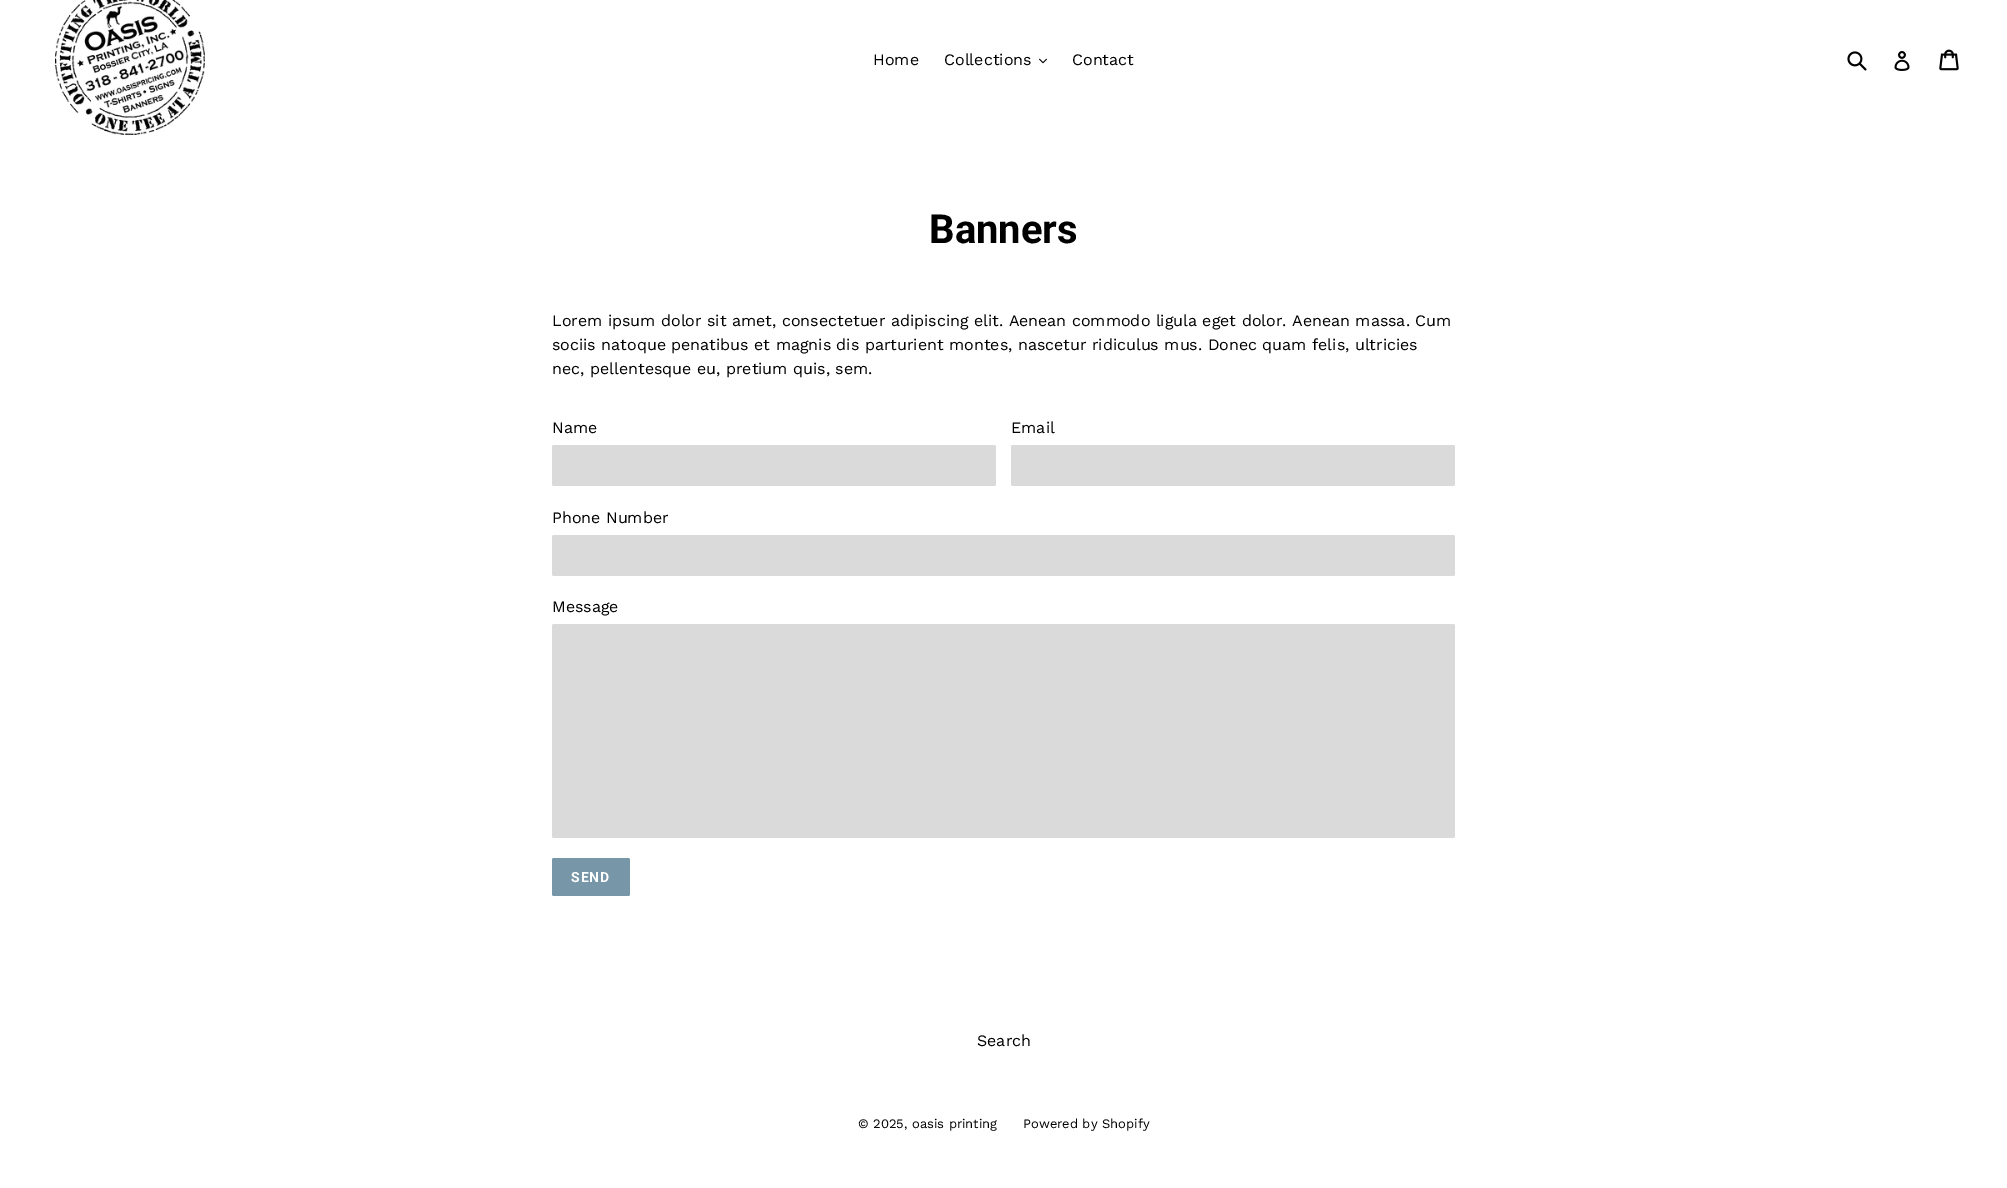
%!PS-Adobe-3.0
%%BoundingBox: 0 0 2007 1188
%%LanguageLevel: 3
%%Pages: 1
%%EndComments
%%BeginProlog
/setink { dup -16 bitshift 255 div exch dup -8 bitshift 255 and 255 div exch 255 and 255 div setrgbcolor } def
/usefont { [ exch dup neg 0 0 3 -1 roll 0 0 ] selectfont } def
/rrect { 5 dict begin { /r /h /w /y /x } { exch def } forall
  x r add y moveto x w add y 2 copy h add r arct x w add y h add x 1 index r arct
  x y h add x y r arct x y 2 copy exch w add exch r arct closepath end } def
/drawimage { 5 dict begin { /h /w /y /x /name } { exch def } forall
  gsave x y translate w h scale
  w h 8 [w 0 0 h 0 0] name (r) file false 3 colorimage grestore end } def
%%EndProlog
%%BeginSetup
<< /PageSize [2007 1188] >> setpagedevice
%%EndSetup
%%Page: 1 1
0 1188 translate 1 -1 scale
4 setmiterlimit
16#FFFFFF setink
0 0 2007 1188 rectfill
(img1.raw) 55 0 150 135 drawimage
/WorkSans-Regular 16 usefont
16#000000 setink
873 65 moveto (Home) show
944 65 moveto (Collections) show
(img2.raw) 1039 58 8 6 drawimage
1072 65 moveto (Contact) show
(img3.raw) 1847 51 20 20 drawimage
(img4.raw) 1894 51 16 20 drawimage
(img5.raw) 1939 49 20 22 drawimage
/Roboto-Bold 40 usefont
929 243 moveto (Banners) show
/WorkSans-Regular 16 usefont
[
    [(Lorem ipsum dolor sit amet, consectetuer adipiscing elit. Aenean commodo ligula eget dolor. Aenean massa. Cum) 552 326]
    [(sociis natoque penatibus et magnis dis parturient montes, nascetur ridiculus mus. Donec quam felis, ultricies) 552 350]
    [(nec, pellentesque eu, pretium quis, sem.) 552 374]
    [(Name) 552 433]
] { aload pop moveto show } forall
16#DADADA setink
552 445 444 41 2 rrect fill
16#000000 setink
1011 433 moveto (Email) show
16#DADADA setink
1011 445 444 41 2 rrect fill
16#000000 setink
552 523 moveto (Phone Number) show
16#DADADA setink
552 535 903 41 2 rrect fill
16#000000 setink
552 612 moveto (Message) show
16#DADADA setink
552 624 903 214 2 rrect fill
16#7796A8 setink
552 858 78 38 2 rrect fill
/Roboto-Bold 14 usefont
16#FFFFFF setink
571 882 moveto 1 0 (SEND) ashow
/WorkSans-Regular 16 usefont
16#000000 setink
977 1046 moveto (Search) show
/WorkSans-Regular 13 usefont
858 1128 moveto (© 2025, oasis printing) show
1023 1128 moveto (Powered by Shopify) show
showpage
%%EOF
